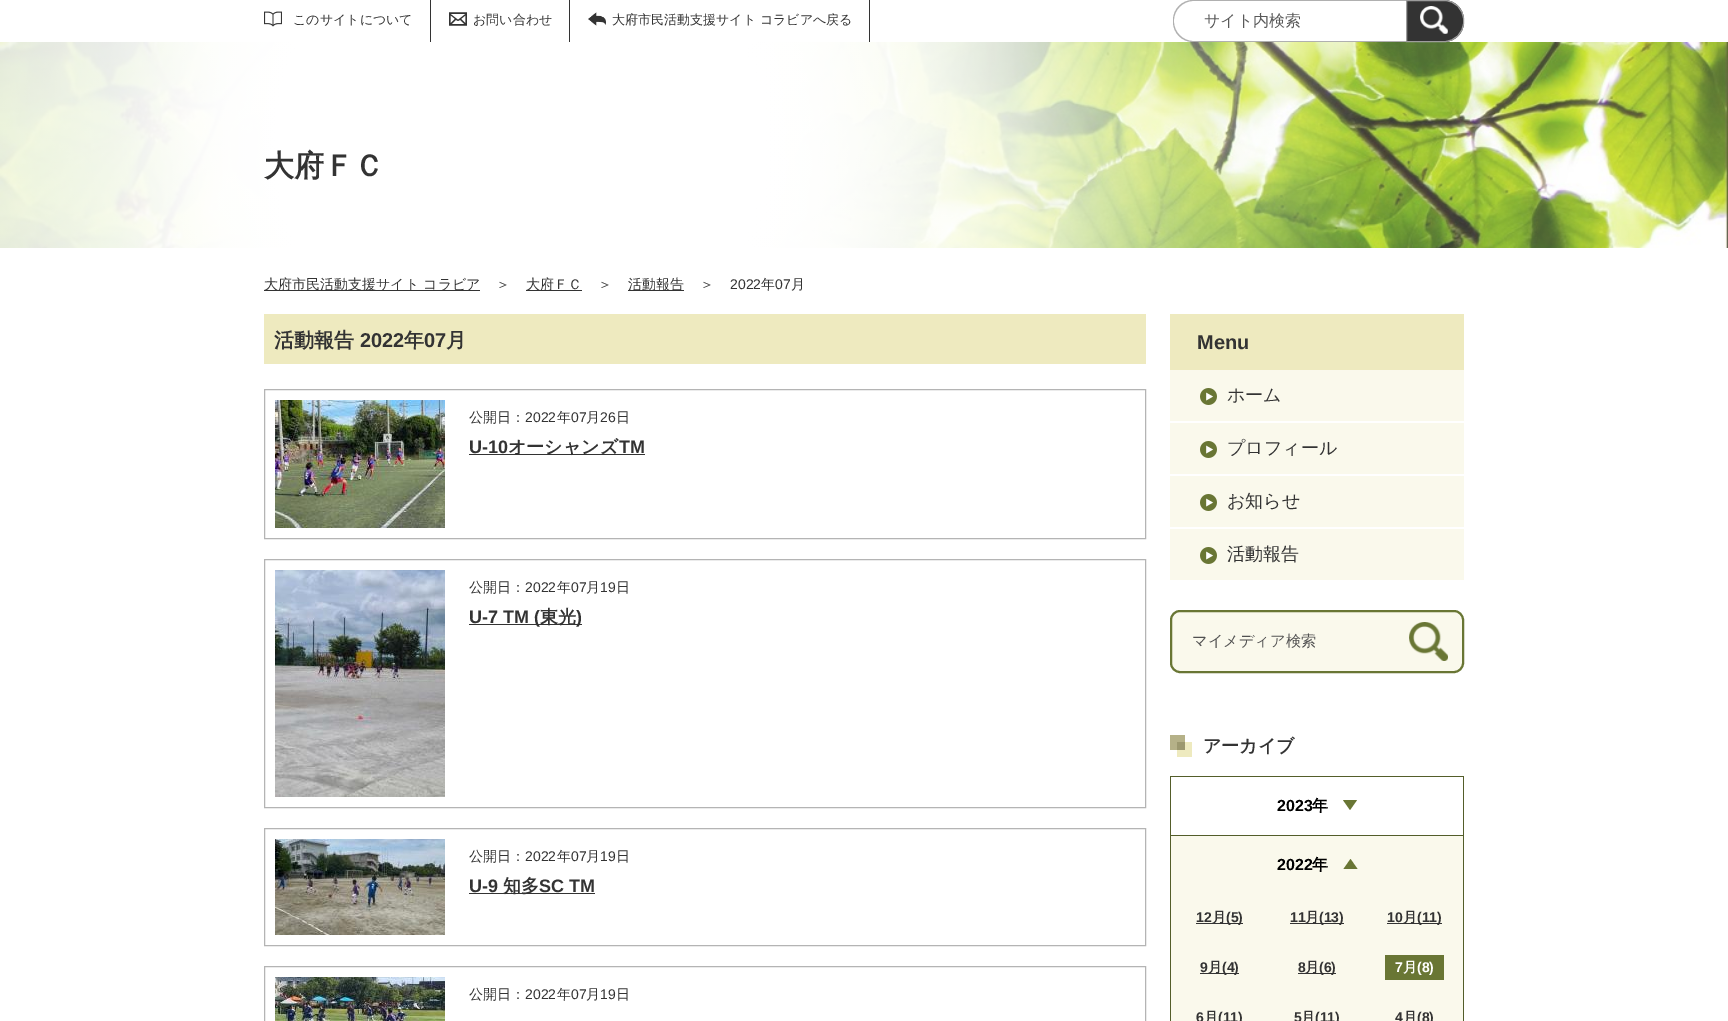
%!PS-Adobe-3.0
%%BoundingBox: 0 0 1728 1021
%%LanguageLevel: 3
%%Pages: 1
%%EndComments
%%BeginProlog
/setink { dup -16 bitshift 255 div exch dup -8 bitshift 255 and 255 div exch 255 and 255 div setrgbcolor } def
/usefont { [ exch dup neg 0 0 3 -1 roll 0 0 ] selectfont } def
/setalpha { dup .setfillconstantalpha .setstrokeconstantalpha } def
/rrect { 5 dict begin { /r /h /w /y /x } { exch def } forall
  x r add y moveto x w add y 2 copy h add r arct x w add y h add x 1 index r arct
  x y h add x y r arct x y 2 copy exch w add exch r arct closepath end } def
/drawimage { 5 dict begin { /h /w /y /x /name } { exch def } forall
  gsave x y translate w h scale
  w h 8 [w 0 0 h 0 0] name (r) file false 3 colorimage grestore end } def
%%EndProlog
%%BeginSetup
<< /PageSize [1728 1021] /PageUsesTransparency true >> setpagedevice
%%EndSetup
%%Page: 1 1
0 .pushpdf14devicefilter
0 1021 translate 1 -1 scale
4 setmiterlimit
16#FFFFFF setink
0 0 1728 1021 rectfill
(img1.raw) 0 42 1728 206 drawimage
16#333333 setink
430 0 1 42 rectfill
(img2.raw) 264 11 18 16 drawimage
/WenQuanYiZenHei-Medium 13 usefont
293 24 moveto (このサイトについて) show
569 0 1 42 rectfill
(img3.raw) 449 12 18 14 drawimage
473 24 moveto (お問い合わせ) show
869 0 1 42 rectfill
(img4.raw) 588 12 18 14 drawimage
612 24 moveto (大府市民活動支援サイト コラビアへ戻る) show
16#B0B0B0 setink
1193 0 moveto 1406 0 lineto 1406 42 lineto 1193 42 lineto 1182 42 1173 33 1173 22 curveto 1173 20 lineto 1173 9 1182 0 1193 0 curveto closepath 1193 1 moveto 1406 1 lineto 1406 41 lineto 1193 41 lineto 1183 41 1174 32 1174 22 curveto 1174 20 lineto 1174 10 1183 1 1193 1 curveto closepath eofill
/WenQuanYiZenHei-Medium 16 usefont
16#595959 setink
1204 26 moveto (サイト内検索) show
16#333333 setink
1406 0 moveto 1444 0 lineto 1455 0 1464 9 1464 20 curveto 1464 22 lineto 1464 33 1455 42 1444 42 curveto 1406 42 lineto closepath fill
0.9 setalpha
16#A7A7A7 setink
1406.5 0.5 moveto 1444 0.5 lineto 1455 0.5 1463.5 9 1463.5 20 curveto 1463.5 22 lineto 1463.5 33 1455 41.5 1444 41.5 curveto 1406.5 41.5 lineto closepath stroke
1 setalpha
(img5.raw) 1420 6 28 28 drawimage
/WenQuanYiZenHei-Bold 30 usefont
16#333333 setink
264 176 moveto (大府ＦＣ) show
264 290 216 1 rectfill
/WenQuanYiZenHei-Medium 14 usefont
264 289 moveto (大府市民活動支援サイト コラビア) show
496 289 moveto (＞) show
526 290 56 1 rectfill
526 289 moveto (大府ＦＣ) show
598 289 moveto (＞) show
628 290 56 1 rectfill
628 289 moveto (活動報告) show
700 289 moveto (＞) show
/LiberationSans-Regular 14 usefont
730 289 moveto (2022) show
/WenQuanYiZenHei-Medium 14 usefont
761 289 moveto (年) show
/LiberationSans-Regular 14 usefont
775 289 moveto (07) show
/WenQuanYiZenHei-Medium 14 usefont
791 289 moveto (月) show
16#EEEABF setink
264 314 882 50 rectfill
/WenQuanYiZenHei-Bold 20 usefont
16#333333 setink
274 347 moveto (活動報告) show
/LiberationSans-Bold 20 usefont
360 347 moveto (2022) show
/WenQuanYiZenHei-Bold 20 usefont
404 347 moveto (年) show
/LiberationSans-Bold 20 usefont
424 347 moveto (07) show
/WenQuanYiZenHei-Bold 20 usefont
446 347 moveto (月) show
16#B4B4B4 setink
264.5 389.5 881 149 rectstroke
(img6.raw) 275 400 170 128 drawimage
/WenQuanYiZenHei-Medium 14 usefont
16#333333 setink
469 422 moveto (公開日：) show
/LiberationSans-Regular 14 usefont
525 422 moveto (2022) show
/WenQuanYiZenHei-Medium 14 usefont
557 422 moveto (年) show
/LiberationSans-Regular 14 usefont
571 422 moveto (07) show
/WenQuanYiZenHei-Medium 14 usefont
586 422 moveto (月) show
/LiberationSans-Regular 14 usefont
600 422 moveto (26) show
/WenQuanYiZenHei-Medium 14 usefont
616 422 moveto (日) show
/LiberationSans-Bold 18 usefont
469 453 moveto (U-10) show
469 454 176 1 rectfill
/WenQuanYiZenHei-Bold 18 usefont
508 453 moveto (オーシャンズ) show
/LiberationSans-Bold 18 usefont
619 453 moveto (TM) show
16#B4B4B4 setink
264.5 559.5 881 248 rectstroke
(img7.raw) 275 570 170 227 drawimage
/WenQuanYiZenHei-Medium 14 usefont
16#333333 setink
469 592 moveto (公開日：) show
/LiberationSans-Regular 14 usefont
525 592 moveto (2022) show
/WenQuanYiZenHei-Medium 14 usefont
557 592 moveto (年) show
/LiberationSans-Regular 14 usefont
571 592 moveto (07) show
/WenQuanYiZenHei-Medium 14 usefont
586 592 moveto (月) show
/LiberationSans-Regular 14 usefont
600 592 moveto (19) show
/WenQuanYiZenHei-Medium 14 usefont
616 592 moveto (日) show
469 624 113 1 rectfill
/LiberationSans-Bold 18 usefont
469 623 moveto (U-7 TM \() show
/WenQuanYiZenHei-Bold 18 usefont
540 623 moveto (東光) show
/LiberationSans-Bold 18 usefont
576 623 moveto (\)) show
16#B4B4B4 setink
264.5 828.5 881 117 rectstroke
(img8.raw) 275 839 170 96 drawimage
/WenQuanYiZenHei-Medium 14 usefont
16#333333 setink
469 861 moveto (公開日：) show
/LiberationSans-Regular 14 usefont
525 861 moveto (2022) show
/WenQuanYiZenHei-Medium 14 usefont
557 861 moveto (年) show
/LiberationSans-Regular 14 usefont
571 861 moveto (07) show
/WenQuanYiZenHei-Medium 14 usefont
586 861 moveto (月) show
/LiberationSans-Regular 14 usefont
600 861 moveto (19) show
/WenQuanYiZenHei-Medium 14 usefont
616 861 moveto (日) show
/LiberationSans-Bold 18 usefont
469 892 moveto (U-9) show
469 893 126 1 rectfill
/WenQuanYiZenHei-Bold 18 usefont
503 892 moveto (知多) show
/LiberationSans-Bold 18 usefont
539 892 moveto (SC TM) show
16#B4B4B4 setink
264.5 966.5 881 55 rectstroke
(img9.raw) 275 977 170 44 drawimage
/WenQuanYiZenHei-Medium 14 usefont
16#333333 setink
469 999 moveto (公開日：) show
/LiberationSans-Regular 14 usefont
525 999 moveto (2022) show
/WenQuanYiZenHei-Medium 14 usefont
557 999 moveto (年) show
/LiberationSans-Regular 14 usefont
571 999 moveto (07) show
/WenQuanYiZenHei-Medium 14 usefont
586 999 moveto (月) show
/LiberationSans-Regular 14 usefont
600 999 moveto (19) show
/WenQuanYiZenHei-Medium 14 usefont
616 999 moveto (日) show
16#EEEABF setink
1170 314 294 56 rectfill
/LiberationSans-Bold 20 usefont
16#333333 setink
1197 349 moveto (Menu) show
16#FAF9EC setink
1170 370 294 51 rectfill
(img10.raw) 1200 388 17 17 drawimage
/WenQuanYiZenHei-Medium 18 usefont
16#333333 setink
1227 401 moveto (ホーム) show
16#FAF9EC setink
1170 423 294 51 rectfill
(img10.raw) 1200 441 17 17 drawimage
16#333333 setink
1227 454 moveto (プロフィール) show
16#FAF9EC setink
1170 476 294 51 rectfill
(img10.raw) 1200 494 17 17 drawimage
16#333333 setink
1227 507 moveto (お知らせ) show
16#FAF9EC setink
1170 529 294 51 rectfill
(img10.raw) 1200 547 17 17 drawimage
16#333333 setink
1227 560 moveto (活動報告) show
16#FAF9EC setink
1171 611 292 61 9 rrect gsave fill grestore
16#697634 setink
2 setlinewidth
stroke
/WenQuanYiZenHei-Medium 15.25 usefont
16#515151 setink
1192 646 moveto (マイメディア検索) show
(img11.raw) 1409 622 39 39 drawimage
[
    [1170 735 15 15 16#B5B188]
    [1177 742 15 15 16#EEEABF]
    [1177 742 8 8 16#9C986F]
] { aload pop setink rectfill } forall
/WenQuanYiZenHei-Bold 18 usefont
16#333333 setink
1203 752 moveto (アーカイブ) show
[
    [1170 776 294 1 16#535D2A]
    [1463 776 1 59 16#535D2A]
    [1170 776 1 59 16#535D2A]
] { aload pop setink rectfill } forall
/LiberationSans-Bold 16 usefont
16#000000 setink
1277 811 moveto (2023) show
/WenQuanYiZenHei-Bold 16 usefont
1312 811 moveto (年) show
16#697634 setink
1343 800 moveto 1357 800 lineto 1350 810 lineto closepath fill
[
    [1171 836 292 185 16#FAF9EC]
    [1170 835 294 1 16#535D2A]
    [1463 835 1 186 16#535D2A]
    [1170 835 1 186 16#535D2A]
] { aload pop setink rectfill } forall
/LiberationSans-Bold 16 usefont
16#000000 setink
1277 870 moveto (2022) show
/WenQuanYiZenHei-Bold 16 usefont
1312 870 moveto (年) show
16#697634 setink
1357.5 869 moveto 1343.5 869 lineto 1350.5 859 lineto closepath fill
/LiberationSans-Bold 14 usefont
16#333333 setink
1196 922 moveto (12) show
1196 923 47 1 rectfill
/WenQuanYiZenHei-Bold 14 usefont
1212 922 moveto (月) show
/LiberationSans-Bold 14 usefont
1226 922 moveto (\(5\)) show
1290 922 moveto (11) show
1290 923 54 1 rectfill
/WenQuanYiZenHei-Bold 14 usefont
1305 922 moveto (月) show
/LiberationSans-Bold 14 usefont
1319 922 moveto (\(13\)) show
1387 922 moveto (10) show
1387 923 55 1 rectfill
/WenQuanYiZenHei-Bold 14 usefont
1403 922 moveto (月) show
/LiberationSans-Bold 14 usefont
1417 922 moveto (\(11\)) show
1200 972 moveto (9) show
1200 973 39 1 rectfill
/WenQuanYiZenHei-Bold 14 usefont
1208 972 moveto (月) show
/LiberationSans-Bold 14 usefont
1222 972 moveto (\(4\)) show
1298 972 moveto (8) show
1298 973 38 1 rectfill
/WenQuanYiZenHei-Bold 14 usefont
1305 972 moveto (月) show
/LiberationSans-Bold 14 usefont
1319 972 moveto (\(6\)) show
16#697634 setink
1385 955 59 25 rectfill
16#FFFFFF setink
1395 972 moveto (7) show
/WenQuanYiZenHei-Bold 14 usefont
1403 972 moveto (月) show
/LiberationSans-Bold 14 usefont
1417 972 moveto (\(8\)) show
16#333333 setink
1196 1022 moveto (6) show
/WenQuanYiZenHei-Bold 14 usefont
1204 1022 moveto (月) show
/LiberationSans-Bold 14 usefont
1218 1022 moveto (\(11\)) show
1294 1022 moveto (5) show
/WenQuanYiZenHei-Bold 14 usefont
1301 1022 moveto (月) show
/LiberationSans-Bold 14 usefont
1315 1022 moveto (\(11\)) show
1395 1022 moveto (4) show
/WenQuanYiZenHei-Bold 14 usefont
1403 1022 moveto (月) show
/LiberationSans-Bold 14 usefont
1417 1022 moveto (\(8\)) show
.poppdf14devicefilter showpage
%%EOF
